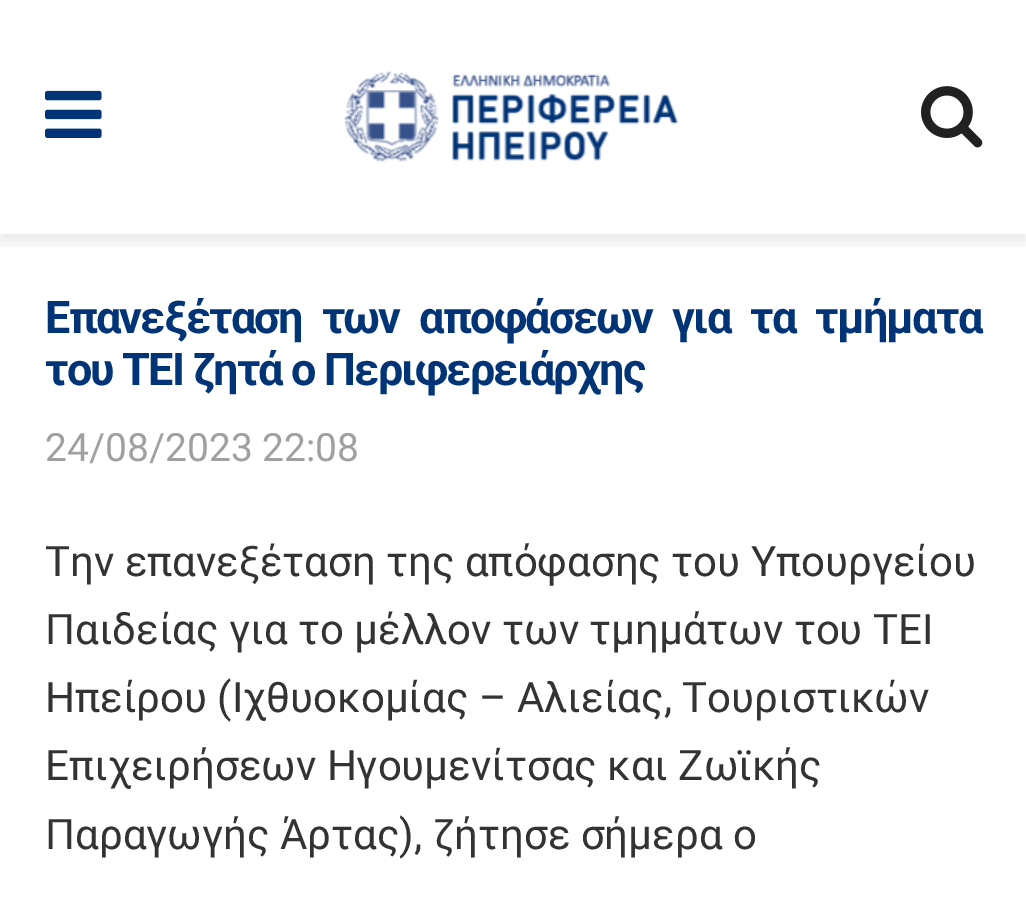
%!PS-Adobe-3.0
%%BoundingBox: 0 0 1026 903
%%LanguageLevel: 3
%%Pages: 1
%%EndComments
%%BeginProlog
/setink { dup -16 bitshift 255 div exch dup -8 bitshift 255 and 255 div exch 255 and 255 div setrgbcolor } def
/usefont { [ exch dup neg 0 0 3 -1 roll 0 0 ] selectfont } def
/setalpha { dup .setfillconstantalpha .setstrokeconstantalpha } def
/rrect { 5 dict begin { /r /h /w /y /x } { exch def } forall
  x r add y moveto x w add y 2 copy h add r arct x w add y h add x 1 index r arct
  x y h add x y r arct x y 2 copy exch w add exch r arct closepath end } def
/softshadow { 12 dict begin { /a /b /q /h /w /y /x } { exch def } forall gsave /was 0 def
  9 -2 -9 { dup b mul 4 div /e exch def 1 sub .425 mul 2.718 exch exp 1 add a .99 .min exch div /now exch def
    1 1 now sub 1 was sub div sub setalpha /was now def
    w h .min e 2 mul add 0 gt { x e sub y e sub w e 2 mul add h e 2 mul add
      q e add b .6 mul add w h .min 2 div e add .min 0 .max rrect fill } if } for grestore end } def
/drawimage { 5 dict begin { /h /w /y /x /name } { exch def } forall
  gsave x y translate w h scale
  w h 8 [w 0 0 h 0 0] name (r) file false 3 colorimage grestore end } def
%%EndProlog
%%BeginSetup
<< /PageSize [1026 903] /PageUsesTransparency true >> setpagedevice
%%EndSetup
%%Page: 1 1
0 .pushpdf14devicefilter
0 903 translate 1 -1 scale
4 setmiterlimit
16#FFFFFF setink
0 0 1026 903 rectfill
gsave
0 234 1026 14 rectclip
16#000000 setink
0 6 1026 234 0 9 0.1 softshadow
grestore
(img1.raw) 45 90 57 48 drawimage
(img2.raw) 344 71 335 91 drawimage
(img3.raw) 921 86 62 62 drawimage
/Roboto-Bold 45 usefont
16#003476 setink
45 333 moveto 10.5 0 32 -1.8 0 (Επανεξέταση των αποφάσεων για τα τμήματα) awidthshow
45 385 moveto -1.8 0 (του ΤΕΙ ζητά ο Περιφερειάρχης) ashow
/Roboto-Regular 39 usefont
16#A0A0A0 setink
45 461 moveto (24/08/2023 22:08) show
/Roboto-Regular 42 usefont
16#333333 setink
[
    [(Την επανεξέταση της απόφασης του Υπουργείου) 45 576]
    [(Παιδείας για το μέλλον των τμημάτων του ΤΕΙ) 45 644]
    [(Ηπείρου \(Ιχθυοκομίας – Αλιείας, Τουριστικών) 45 712]
    [(Επιχειρήσεων Ηγουμενίτσας και Ζωϊκής) 45 780]
    [(Παραγωγής Άρτας\), ζήτησε σήμερα ο) 45 849]
] { aload pop moveto show } forall
.poppdf14devicefilter showpage
%%EOF
